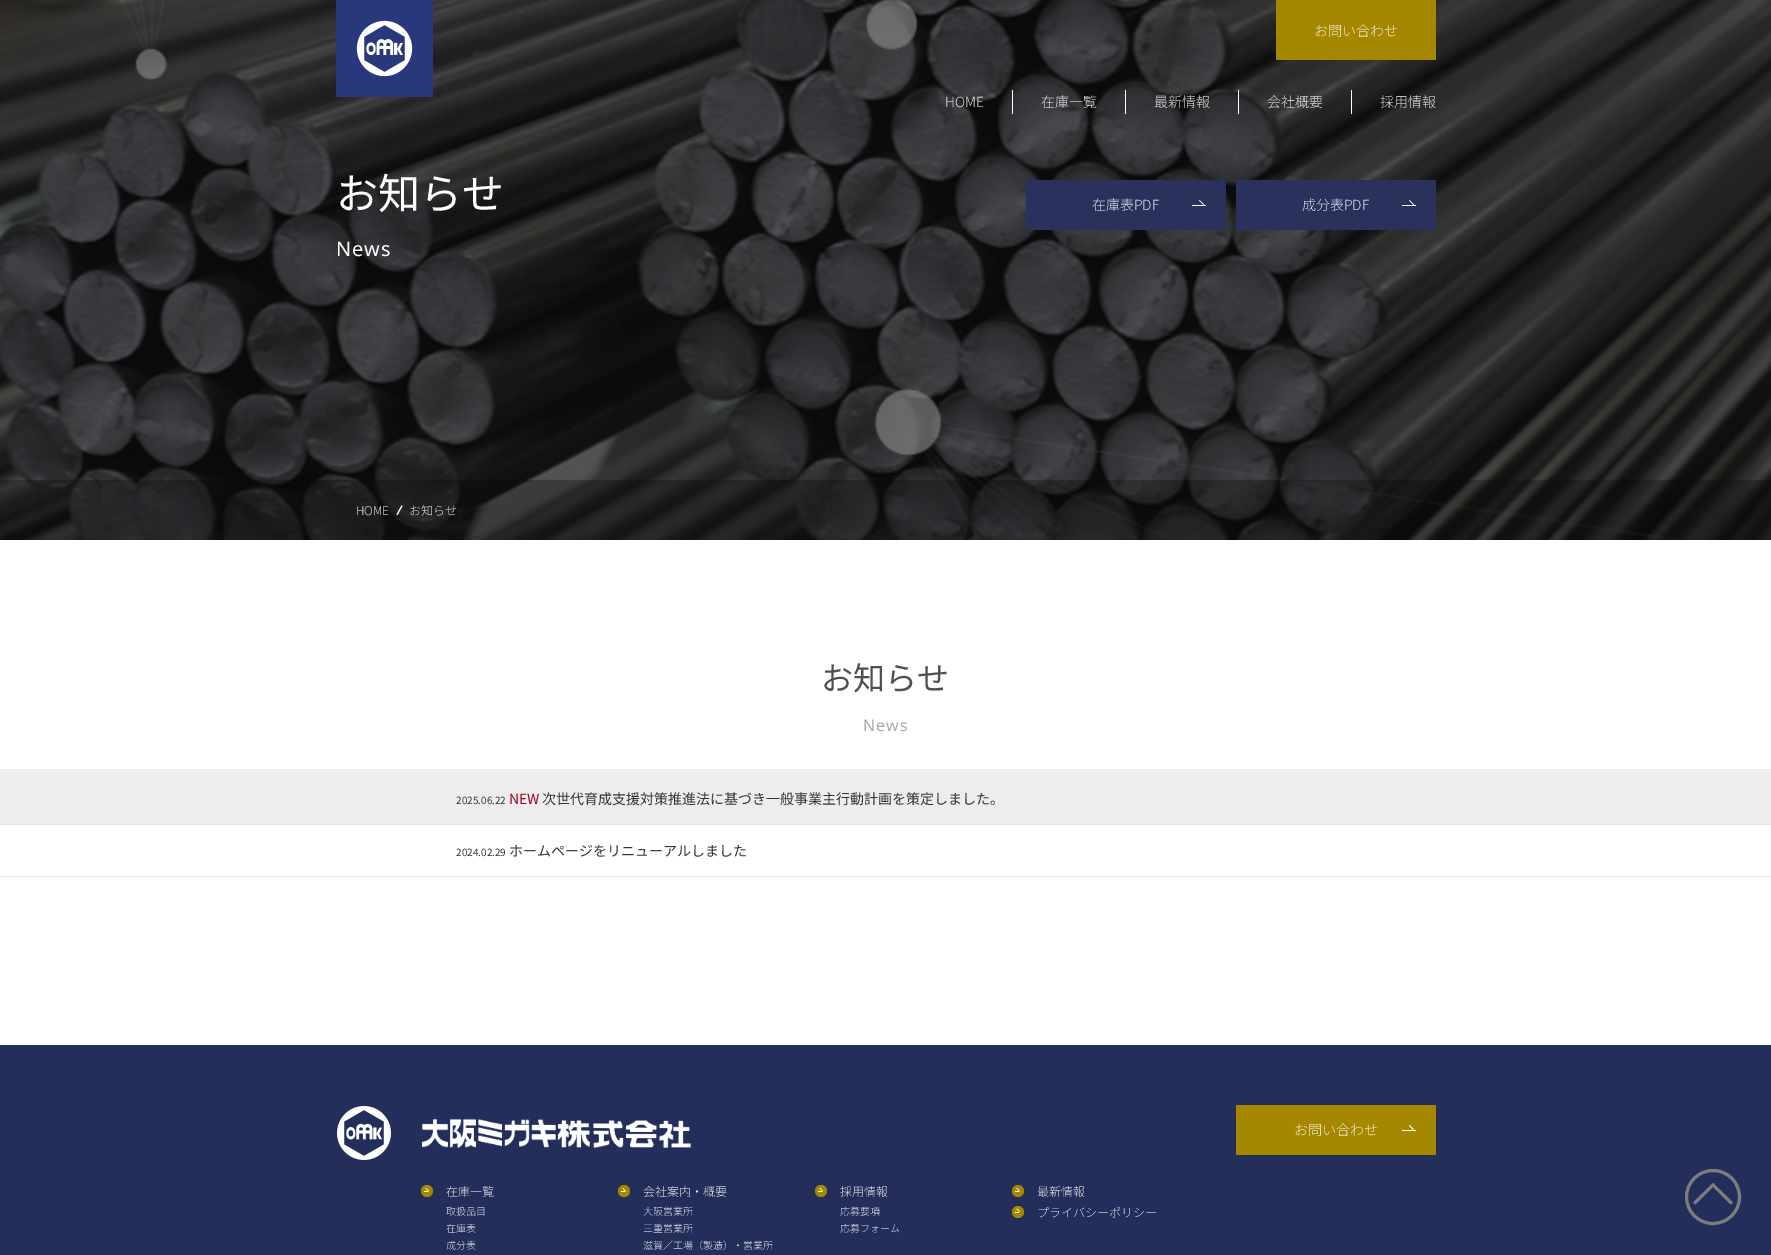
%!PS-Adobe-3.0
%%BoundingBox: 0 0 1771 1255
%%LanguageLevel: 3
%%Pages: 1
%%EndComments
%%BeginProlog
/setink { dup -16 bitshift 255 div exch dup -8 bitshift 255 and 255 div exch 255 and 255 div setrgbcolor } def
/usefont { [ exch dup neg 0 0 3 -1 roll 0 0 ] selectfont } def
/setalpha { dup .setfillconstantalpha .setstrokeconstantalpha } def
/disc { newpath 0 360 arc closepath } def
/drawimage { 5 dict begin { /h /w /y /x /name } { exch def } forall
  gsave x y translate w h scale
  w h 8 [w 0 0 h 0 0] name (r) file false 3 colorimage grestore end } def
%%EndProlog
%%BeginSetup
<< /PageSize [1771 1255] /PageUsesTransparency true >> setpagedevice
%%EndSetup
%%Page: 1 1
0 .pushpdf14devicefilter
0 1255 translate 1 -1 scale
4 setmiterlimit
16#FFFFFF setink
0 0 1771 1255 rectfill
(img2.raw) 0 0 1771 540 drawimage
(img1.raw) 336 0 97 97 drawimage
16#A68800 setink
1276 0 160 60 rectfill
/NotoSansJP-ExtraLight 14 usefont
16#FFFFFF setink
1314 36 moveto (お問い合わせ) show
1012 90 1 24 rectfill
945 107 moveto (HOME) show
1125 90 1 24 rectfill
1041 107 moveto (在庫一覧) show
1238 90 1 24 rectfill
1154 107 moveto (最新情報) show
1351 90 1 24 rectfill
1267 107 moveto (会社概要) show
1380 107 moveto (採用情報) show
16#2A315D setink
1026 180 200 50 rectfill
16#FFFFFF setink
1092 210 moveto (在庫表PDF) show
1192 205 14 1 rectfill
1199.5 200 moveto 1205 205.5 lineto 1204.5 206 lineto 1199 200.5 lineto closepath fill
16#2A315D setink
1236 180 200 50 rectfill
16#FFFFFF setink
1302 210 moveto (成分表PDF) show
1402 205 14 1 rectfill
1409.5 200 moveto 1415 205.5 lineto 1414.5 206 lineto 1409 200.5 lineto closepath fill
/NotoSansJP-Regular 42 usefont
336 209 moveto (お知らせ) show
/NotoSans-Regular 20 usefont
336 256 moveto 1 0 (News) ashow
0.3 setalpha
16#080808 setink
0 480 1771 60 rectfill
/NotoSansJP-ExtraLight 12 usefont
1 setalpha
16#FFFFFF setink
356 515 moveto (HOME) show
401.5 505.5 moveto 402.5 506 lineto 397.5 515 lineto 396.5 514.5 lineto closepath fill
409 515 moveto (お知らせ) show
/NotoSansJP-Regular 32 usefont
16#505050 setink
821 690 moveto (お知らせ) show
/NotoSans-Regular 16 usefont
16#A9A9A9 setink
863 731 moveto 1 0 (News) ashow
16#EDEDED setink
0 769 1771 55 rectfill
16#E4E4E4 setink
0 824 1771 1 rectfill
/NotoSansJP-Regular 10 usefont
16#333333 setink
456 804 moveto (2025.06.22) show
/NotoSansJP-Regular 14 usefont
16#97001E setink
509 804 moveto (NEW) show
16#333333 setink
542 804 moveto (次世代育成支援対策推進法に基づき一般事業主行動計画を策定しました。) show
16#E4E4E4 setink
0 876 1771 1 rectfill
/NotoSansJP-Regular 10 usefont
16#333333 setink
456 856 moveto (2024.02.29) show
/NotoSansJP-Regular 14 usefont
509 856 moveto (ホームページをリニューアルしました) show
16#242E5B setink
0 1045 1771 210 rectfill
(img3.raw) 337 1106 54 54 drawimage
(img4.raw) 422 1118 270 30 drawimage
16#A68800 setink
1236 1105 200 50 rectfill
/NotoSansJP-ExtraLight 14 usefont
16#FFFFFF setink
1294 1135 moveto (お問い合わせ) show
1402 1130 14 1 rectfill
1409.5 1125 moveto 1415 1130.5 lineto 1414.5 1131.5 lineto 1409 1125.5 lineto closepath fill
16#A68800 setink
427 1191 6 disc fill
16#FFFFFF setink
424 1191 4 1 rectfill
426 1188 moveto 429 1191 lineto 428.5 1191.5 lineto 425.5 1188.5 lineto closepath fill
/NotoSansJP-ExtraLight 12 usefont
446 1196 moveto (在庫一覧) show
16#A68800 setink
624 1191 6 disc fill
16#FFFFFF setink
621 1191 4 1 rectfill
623 1188 moveto 626 1191 lineto 625.5 1191.5 lineto 622.5 1188.5 lineto closepath fill
643 1196 moveto (会社案内・概要) show
16#A68800 setink
821 1191 6 disc fill
16#FFFFFF setink
818 1191 4 1 rectfill
820 1188 moveto 823 1191 lineto 822.5 1191.5 lineto 819.5 1188.5 lineto closepath fill
840 1196 moveto (採用情報) show
16#A68800 setink
1018 1191 6 disc fill
16#FFFFFF setink
1015 1191 4 1 rectfill
1017 1188 moveto 1020 1191 lineto 1019.5 1191.5 lineto 1016.5 1188.5 lineto closepath fill
1037 1196 moveto (最新情報) show
/NotoSansJP-ExtraLight 10 usefont
[
    [(取扱品目) 446 1215]
    [(大阪営業所) 643 1215]
    [(応募要項) 840 1215]
] { aload pop moveto show } forall
16#A68800 setink
1018 1212 6 disc fill
16#FFFFFF setink
1017 1208.5 moveto 1020 1211.5 lineto 1019.5 1212 lineto 1016.5 1209 lineto closepath fill
1015 1212 4 1 rectfill
/NotoSansJP-ExtraLight 12 usefont
1037 1217 moveto (プライバシーポリシー) show
/NotoSansJP-ExtraLight 10 usefont
[
    [(在庫表) 446 1232]
    [(三重営業所) 643 1232]
    [(応募フォーム) 840 1232]
    [(成分表) 446 1249]
    [(滋賀／工場（製造）・営業所) 643 1249]
] { aload pop moveto show } forall
16#7D7D7D setink
3 setlinewidth
1713 1197 26.5 disc stroke
1693 1202.5 moveto 1713 1183 lineto 1715 1185 lineto 1695.5 1204.5 lineto closepath fill
1711 1185 moveto 1713 1183 lineto 1733 1202.5 lineto 1730.5 1204.5 lineto closepath fill
.poppdf14devicefilter showpage
%%EOF
